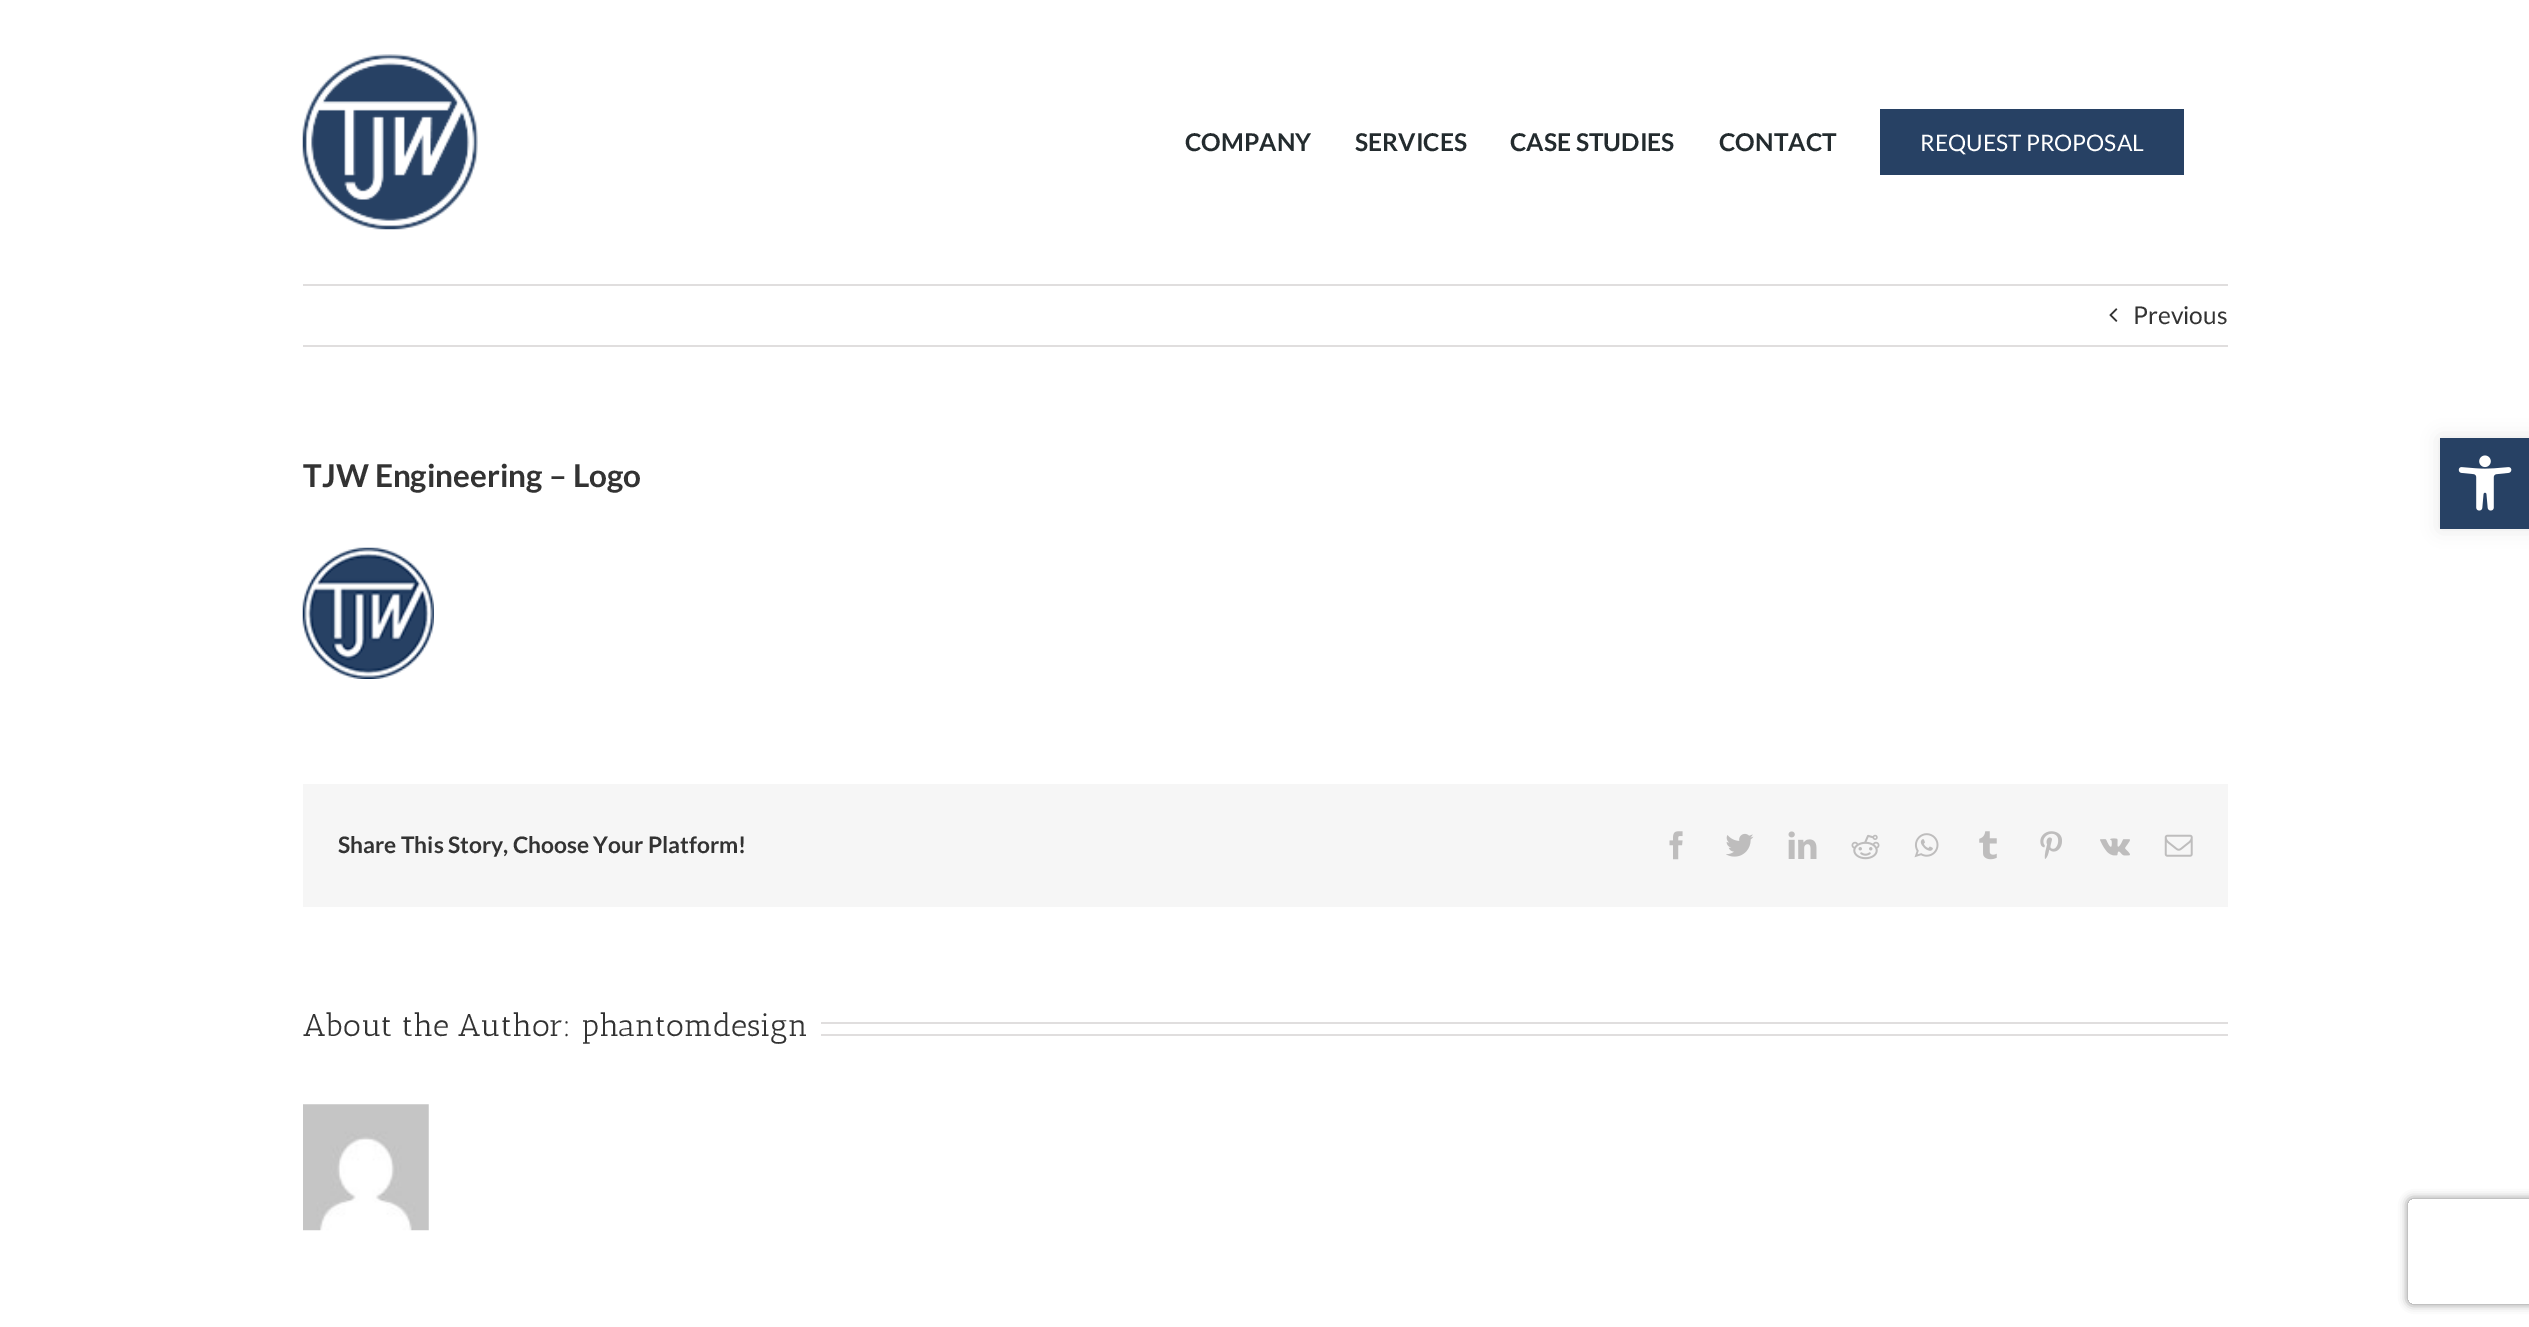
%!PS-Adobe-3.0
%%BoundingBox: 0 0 2529 1327
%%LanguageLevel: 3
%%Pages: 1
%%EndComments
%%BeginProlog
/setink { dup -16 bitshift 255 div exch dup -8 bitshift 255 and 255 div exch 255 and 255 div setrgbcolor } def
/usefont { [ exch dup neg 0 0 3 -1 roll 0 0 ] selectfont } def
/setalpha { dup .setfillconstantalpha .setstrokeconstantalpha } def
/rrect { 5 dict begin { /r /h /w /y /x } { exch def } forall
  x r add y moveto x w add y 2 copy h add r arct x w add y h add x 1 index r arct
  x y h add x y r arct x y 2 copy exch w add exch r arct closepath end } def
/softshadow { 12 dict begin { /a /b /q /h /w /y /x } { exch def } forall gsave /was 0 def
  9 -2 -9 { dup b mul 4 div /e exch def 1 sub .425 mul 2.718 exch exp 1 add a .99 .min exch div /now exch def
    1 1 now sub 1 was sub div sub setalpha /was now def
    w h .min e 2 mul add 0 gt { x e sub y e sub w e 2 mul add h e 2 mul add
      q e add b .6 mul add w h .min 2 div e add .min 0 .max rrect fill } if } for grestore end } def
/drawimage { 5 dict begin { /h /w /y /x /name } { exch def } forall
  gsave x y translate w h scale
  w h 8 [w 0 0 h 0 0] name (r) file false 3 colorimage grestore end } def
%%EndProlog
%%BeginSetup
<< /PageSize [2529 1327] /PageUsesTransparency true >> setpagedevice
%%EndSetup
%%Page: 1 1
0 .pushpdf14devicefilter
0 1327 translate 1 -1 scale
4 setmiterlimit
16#FFFFFF setink
0 0 2529 1327 rectfill
(img1.raw) 302 54 176 176 drawimage
/Lato-Bold 24.5 usefont
16#232B2E setink
[
    [(COMPANY) 1185 151]
    [(SERVICES) 1355 151]
    [(CASE STUDIES) 1510 151]
    [(CONTACT) 1719 151]
] { aload pop moveto show } forall
16#274164 setink
1880 109 304 66 rectfill
/Lato-Regular 22.75 usefont
16#FFFFFF setink
1920 151 moveto (REQUEST PROPOSAL) show
16#E0DEDE setink
303 284 1925 2 rectfill
303 345 1925 2 rectfill
(img2.raw) 2109 308 9 14 drawimage
/Lato-Regular 24.5 usefont
16#333333 setink
2133 324 moveto (Previous) show
/Lato-Bold 31.5 usefont
303 487 moveto (TJW Engineering – Logo) show
(img3.raw) 302 547 132 132 drawimage
16#F6F6F6 setink
303 784 1925 123 rectfill
/Lato-Bold 22.75 usefont
16#333333 setink
338 853 moveto (Share This Story, Choose Your Platform!) show
(img4.raw) 1669 831 14 29 drawimage
(img5.raw) 1726 833 28 24 drawimage
(img6.raw) 1788 831 29 28 drawimage
(img7.raw) 1851 834 29 26 drawimage
(img8.raw) 1914 833 25 25 drawimage
(img9.raw) 1979 831 18 29 drawimage
(img10.raw) 2040 831 22 28 drawimage
(img11.raw) 2100 838 30 18 drawimage
(img12.raw) 2164 834 29 23 drawimage
/AnticSlab-Regular 31.5 usefont
303 1036 moveto (About the Author: phantomdesign) show
16#E0DEDE setink
821 1022 1407 2 rectfill
821 1034 1407 2 rectfill
(img13.raw) 303 1104 126 127 drawimage
16#000000 setink
2440 438 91 91 0 9 0.1 softshadow
16#274164 setink
2440 438 89 91 rectfill
(img14.raw) 2458 455 54 56 drawimage
gsave
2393 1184 moveto 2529 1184 lineto 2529 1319 lineto 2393 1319 lineto closepath 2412 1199 moveto 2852 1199 lineto 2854 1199 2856 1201 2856 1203 curveto 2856 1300 lineto 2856 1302 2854 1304 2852 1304 curveto 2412 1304 lineto 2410 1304 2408 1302 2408 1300 curveto 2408 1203 lineto 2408 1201 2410 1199 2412 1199 curveto closepath eoclip newpath
16#808080 setink
2408 1199 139 105 4 4.5 1 softshadow
grestore
.poppdf14devicefilter showpage
%%EOF
